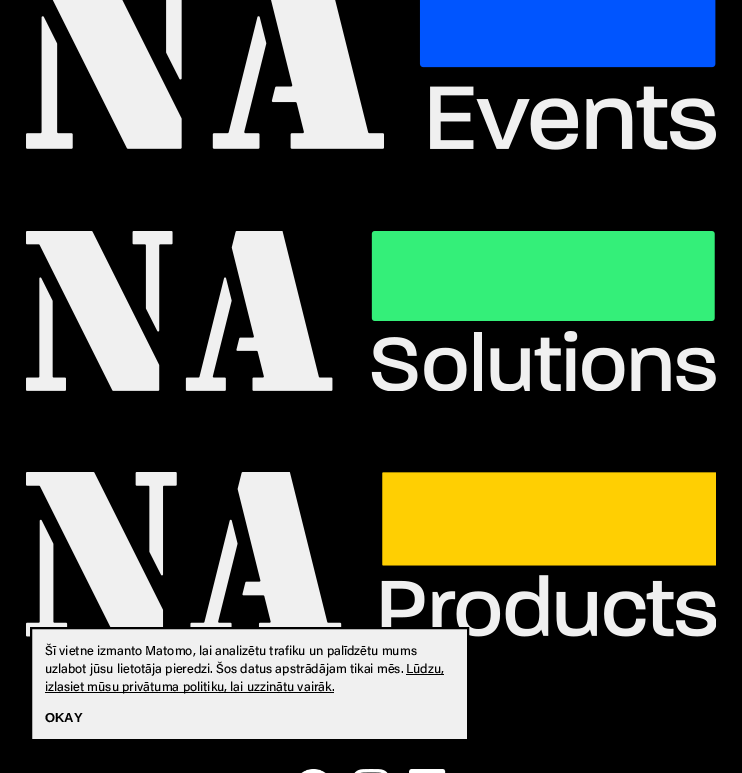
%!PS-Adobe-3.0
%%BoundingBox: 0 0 742 773
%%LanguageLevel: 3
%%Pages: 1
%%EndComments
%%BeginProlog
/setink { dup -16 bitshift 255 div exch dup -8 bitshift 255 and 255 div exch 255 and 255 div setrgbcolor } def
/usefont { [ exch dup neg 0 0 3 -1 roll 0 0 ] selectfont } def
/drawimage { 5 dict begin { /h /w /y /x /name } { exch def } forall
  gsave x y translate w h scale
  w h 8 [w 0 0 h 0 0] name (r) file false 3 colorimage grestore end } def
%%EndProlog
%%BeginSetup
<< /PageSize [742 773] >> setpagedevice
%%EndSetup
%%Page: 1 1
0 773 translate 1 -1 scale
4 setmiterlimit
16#000000 setink
0 0 742 773 rectfill
(img1.raw) 26 0 690 150 drawimage
(img2.raw) 26 231 690 160 drawimage
(img3.raw) 26 472 690 165 drawimage
(img4.raw) 301 769 25 4 drawimage
(img5.raw) 354 769 34 4 drawimage
(img6.raw) 409 769 37 4 drawimage
16#F0F0F0 setink
31 628 moveto 468 628 lineto 468 740 lineto 31 740 lineto closepath gsave fill grestore
16#000000 setink
2 setlinewidth
stroke
/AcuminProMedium-Medium 12.8 usefont
45 655 moveto (Šī vietne izmanto Matomo, lai analizētu trafiku un palīdzētu mums) show
45 673 moveto (uzlabot jūsu lietotāja pieredzi. Šos datus apstrādājam tikai mēs.) show
406 674 38 1 rectfill
406 673 moveto (Lūdzu,) show
45 692 289 1 rectfill
45 691 moveto (izlasiet mūsu privātuma politiku, lai uzzinātu vairāk.) show
/LiberationSans-Bold 13 usefont
45 722 moveto (OKAY) show
showpage
%%EOF
